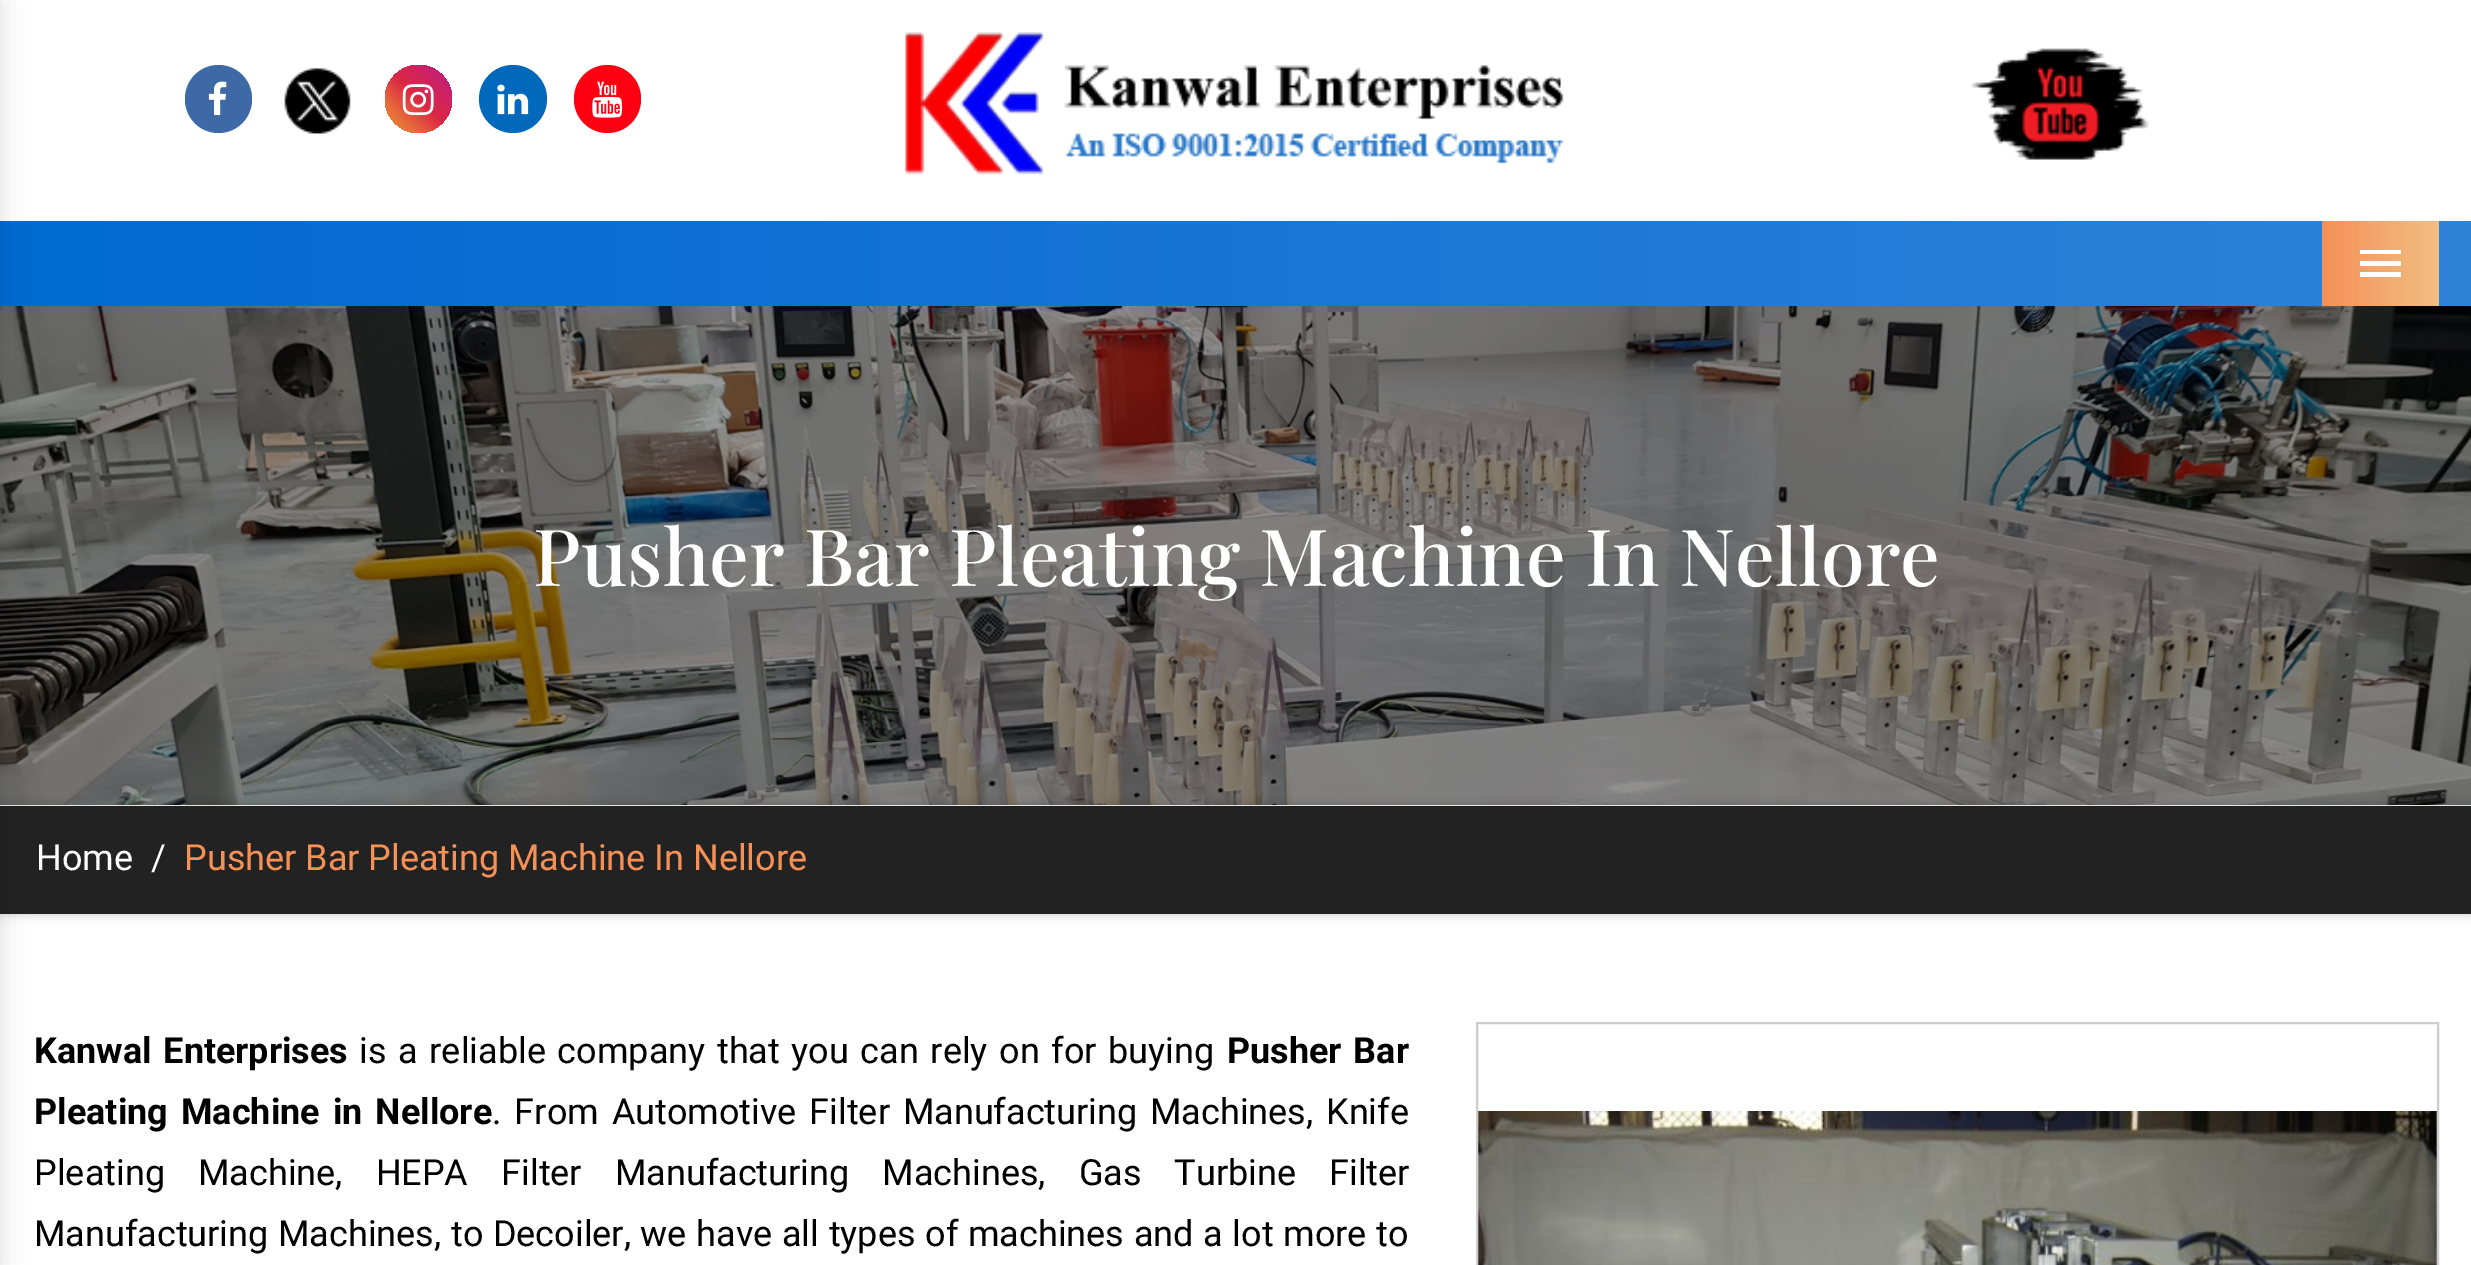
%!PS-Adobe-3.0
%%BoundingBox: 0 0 2471 1265
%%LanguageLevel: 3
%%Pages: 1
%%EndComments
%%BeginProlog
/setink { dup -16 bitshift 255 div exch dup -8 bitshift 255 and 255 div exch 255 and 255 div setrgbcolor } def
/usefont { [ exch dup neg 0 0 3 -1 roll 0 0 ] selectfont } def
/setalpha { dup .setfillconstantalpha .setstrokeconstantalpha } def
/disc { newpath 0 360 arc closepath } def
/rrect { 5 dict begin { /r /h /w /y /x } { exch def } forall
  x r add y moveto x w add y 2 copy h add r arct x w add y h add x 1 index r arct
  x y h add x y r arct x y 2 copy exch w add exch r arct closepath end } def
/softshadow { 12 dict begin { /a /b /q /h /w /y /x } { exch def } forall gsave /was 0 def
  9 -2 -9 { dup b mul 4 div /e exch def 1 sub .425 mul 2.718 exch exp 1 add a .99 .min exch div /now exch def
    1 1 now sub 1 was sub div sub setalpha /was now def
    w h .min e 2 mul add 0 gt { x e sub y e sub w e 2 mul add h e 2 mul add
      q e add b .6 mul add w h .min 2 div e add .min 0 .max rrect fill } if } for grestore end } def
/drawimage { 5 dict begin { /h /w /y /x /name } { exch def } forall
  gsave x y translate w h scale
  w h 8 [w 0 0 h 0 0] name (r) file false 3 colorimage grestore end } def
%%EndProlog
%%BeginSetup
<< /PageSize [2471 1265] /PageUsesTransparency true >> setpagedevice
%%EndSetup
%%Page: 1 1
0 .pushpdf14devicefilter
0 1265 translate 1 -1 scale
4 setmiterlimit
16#FFFFFF setink
0 0 2471 1265 rectfill
gsave 0 221 moveto 2471 221 lineto 2471 306 lineto 0 306 lineto closepath clip newpath
<< /ShadingType 2 /ColorSpace /DeviceRGB /Coords [0 263 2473 263] /Extend [true true] /Function << /FunctionType 2 /Domain [0 1] /C0 [0 0.412 0.824] /C1 [0.184 0.51 0.847] /N 1 >> >> shfill grestore
(img8.raw) 0 306 2471 499 drawimage
16#000000 setink
0 806 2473 108 0 5.5 0.2 softshadow
16#222222 setink
0 806 2471 108 rectfill
16#000000 setink
-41 0 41 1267 0 13.5 0.14 softshadow
16#3D69A6 setink
185 65 67 68 33.5 rrect fill
(img1.raw) 208 81 19 35 drawimage
(img2.raw) 284 68 67 66 drawimage
gsave 385 65 67 68 33.5 rrect clip newpath
<< /ShadingType 2 /ColorSpace /DeviceRGB /Coords [385 133 452 65] /Extend [true true] /Function << /FunctionType 3 /Domain [0 1] /Functions [<< /FunctionType 2 /Domain [0 1] /C0 [0.941 0.58 0.2] /C1 [0.902 0.408 0.235] /N 1 >> << /FunctionType 2 /Domain [0 1] /C0 [0.902 0.408 0.235] /C1 [0.863 0.153 0.263] /N 1 >> << /FunctionType 2 /Domain [0 1] /C0 [0.863 0.153 0.263] /C1 [0.8 0.137 0.4] /N 1 >> << /FunctionType 2 /Domain [0 1] /C0 [0.8 0.137 0.4] /C1 [0.737 0.094 0.533] /N 1 >>] /Bounds [0.25 0.5 0.75] /Encode [0 1 0 1 0 1 0 1] >> >> shfill grestore
(img3.raw) 402 84 32 32 drawimage
16#0069BC setink
513 99 34 disc fill
(img4.raw) 497 84 32 31 drawimage
16#FF0013 setink
574 65 67 68 33.5 rrect fill
(img5.raw) 592 81 31 37 drawimage
(img6.raw) 905 32 659 143 drawimage
(img7.raw) 1971 48 178 112 drawimage
gsave 2322 221 moveto 2439 221 lineto 2439 306 lineto 2322 306 lineto closepath clip newpath
<< /ShadingType 2 /ColorSpace /DeviceRGB /Coords [2322 263 2439 263] /Extend [true true] /Function << /FunctionType 2 /Domain [0 1] /C0 [0.961 0.565 0.341] /C1 [0.949 0.749 0.51] /N 1 >> >> shfill grestore
16#FFFFFF setink
2360 277 moveto 2401 277 lineto 2401 272 lineto 2360 272 lineto closepath 2360 266 moveto 2401 266 lineto 2401 261 lineto 2360 261 lineto closepath 2360 250 moveto 2360 254 lineto 2401 254 lineto 2401 250 lineto closepath fill
/PlayfairDisplay-Medium 78.75 usefont
533 586 moveto (Pusher Bar Pleating Machine In Nellore) show
/Roboto-Regular 36 usefont
36 870 moveto (Home) show
151 870 moveto (/) show
16#F59057 setink
184 870 moveto (Pusher Bar Pleating Machine In Nellore) show
/Roboto-Bold 36 usefont
16#000000 setink
34 1063 moveto 2.75 0 32 (Kanwal Enterprises) widthshow
/Roboto-Regular 36 usefont
359 1063 moveto 2.75 0 32 (is a reliable company that you can rely on for buying) widthshow
/Roboto-Bold 36 usefont
1227 1063 moveto 2.75 0 32 (Pusher Bar) widthshow
34 1124 moveto 4 0 32 (Pleating Machine in Nellore) widthshow
/Roboto-Regular 36 usefont
492 1124 moveto 4 0 32 (. From Automotive Filter Manufacturing Machines, Knife) widthshow
34 1185 moveto 24.25 0 32 (Pleating Machine, HEPA Filter Manufacturing Machines, Gas Turbine Filter) widthshow
34 1246 moveto 0.75 0 32 (Manufacturing Machines, to Decoiler, we have all types of machines and a lot more to) widthshow
16#CCCCCC setink
2 setlinewidth
1477 1023 961 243 rectstroke
(img9.raw) 1478 1111 959 154 drawimage
.poppdf14devicefilter showpage
%%EOF
